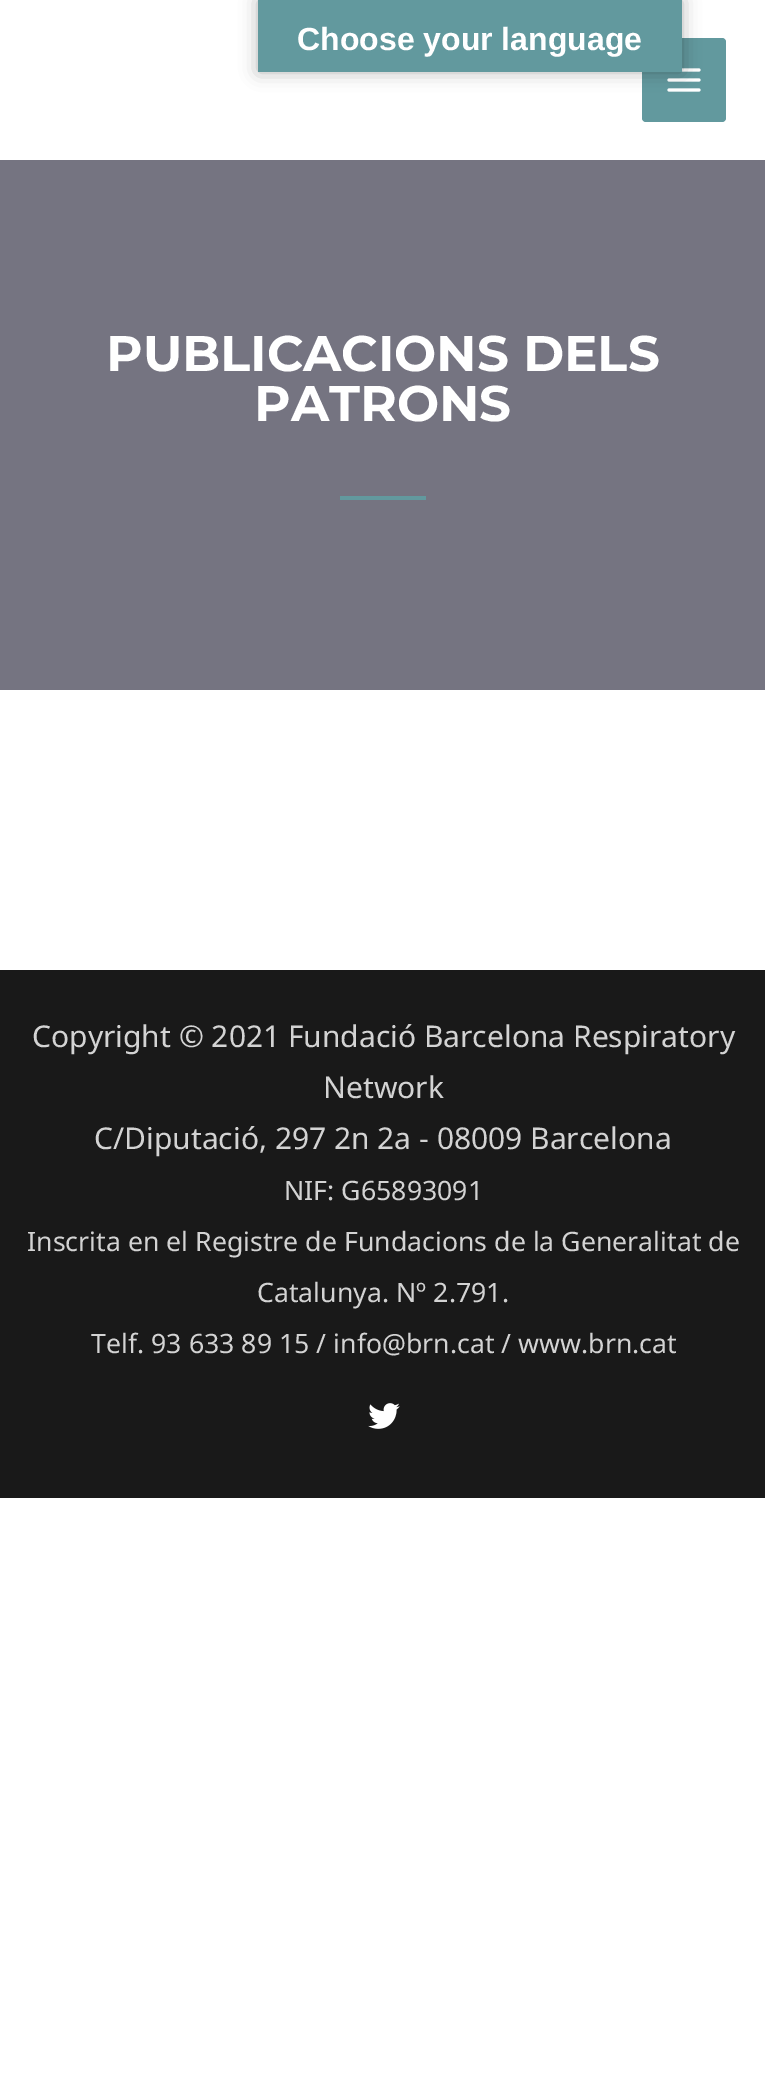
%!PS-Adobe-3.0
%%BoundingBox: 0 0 765 2097
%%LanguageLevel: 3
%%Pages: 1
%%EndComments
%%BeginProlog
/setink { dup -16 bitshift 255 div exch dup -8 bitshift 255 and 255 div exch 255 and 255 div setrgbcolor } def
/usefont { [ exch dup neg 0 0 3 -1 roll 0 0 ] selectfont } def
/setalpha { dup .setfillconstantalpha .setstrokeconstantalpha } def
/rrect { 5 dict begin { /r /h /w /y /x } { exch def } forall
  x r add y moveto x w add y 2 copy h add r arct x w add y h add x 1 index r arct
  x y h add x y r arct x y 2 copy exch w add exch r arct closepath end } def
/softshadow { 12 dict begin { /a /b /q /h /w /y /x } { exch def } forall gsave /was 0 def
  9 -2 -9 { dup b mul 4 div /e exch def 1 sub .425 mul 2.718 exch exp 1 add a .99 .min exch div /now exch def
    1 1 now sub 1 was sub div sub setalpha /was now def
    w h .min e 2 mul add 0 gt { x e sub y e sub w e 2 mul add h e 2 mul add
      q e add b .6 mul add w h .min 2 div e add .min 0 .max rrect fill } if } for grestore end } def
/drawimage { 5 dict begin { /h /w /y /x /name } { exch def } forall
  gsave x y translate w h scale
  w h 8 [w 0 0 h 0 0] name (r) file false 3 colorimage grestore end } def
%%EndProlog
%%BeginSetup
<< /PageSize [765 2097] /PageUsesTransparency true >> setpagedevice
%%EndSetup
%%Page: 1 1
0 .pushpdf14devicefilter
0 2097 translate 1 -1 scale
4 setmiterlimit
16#FFFFFF setink
0 0 765 2097 rectfill
16#62999E setink
642 38 84 84 4 rrect fill
(img1.raw) 667 68 34 24 drawimage
16#000000 setink
258 0 424 72 0 9 0.3 softshadow
16#62999E setink
258 0 424 72 rectfill
/LiberationSans-Bold 32 usefont
16#FFFFFF setink
297 50 moveto (Choose your language) show
16#757481 setink
0 160 765 530 rectfill
/Montserrat-Thin 50 usefont
16#FFFFFF setink
106 371 moveto (PUBLICACIONS DELS) show
254 421 moveto (PATRONS) show
16#62999E setink
340 496 86 4 rectfill
16#191919 setink
0 970 765 528 rectfill
/NotoSans-Regular 30 usefont
16#D3D3D3 setink
[
    [(Copyright © 2021 Fundació Barcelona Respiratory) 32 1047]
    [(Network) 323 1098]
    [(C/Diputació, 297 2n 2a - 08009 Barcelona) 94 1149]
] { aload pop moveto show } forall
/NotoSans-Regular 26.7 usefont
[
    [(NIF: G65893091) 284 1200]
    [(Inscrita en el Registre de Fundacions de la Generalitat de) 27 1251]
    [(Catalunya. Nº 2.791.) 257 1302]
    [(Telf. 93 633 89 15 / info@brn.cat / www.brn.cat) 91 1353]
] { aload pop moveto show } forall
(img2.raw) 368 1403 32 26 drawimage
.poppdf14devicefilter showpage
%%EOF
